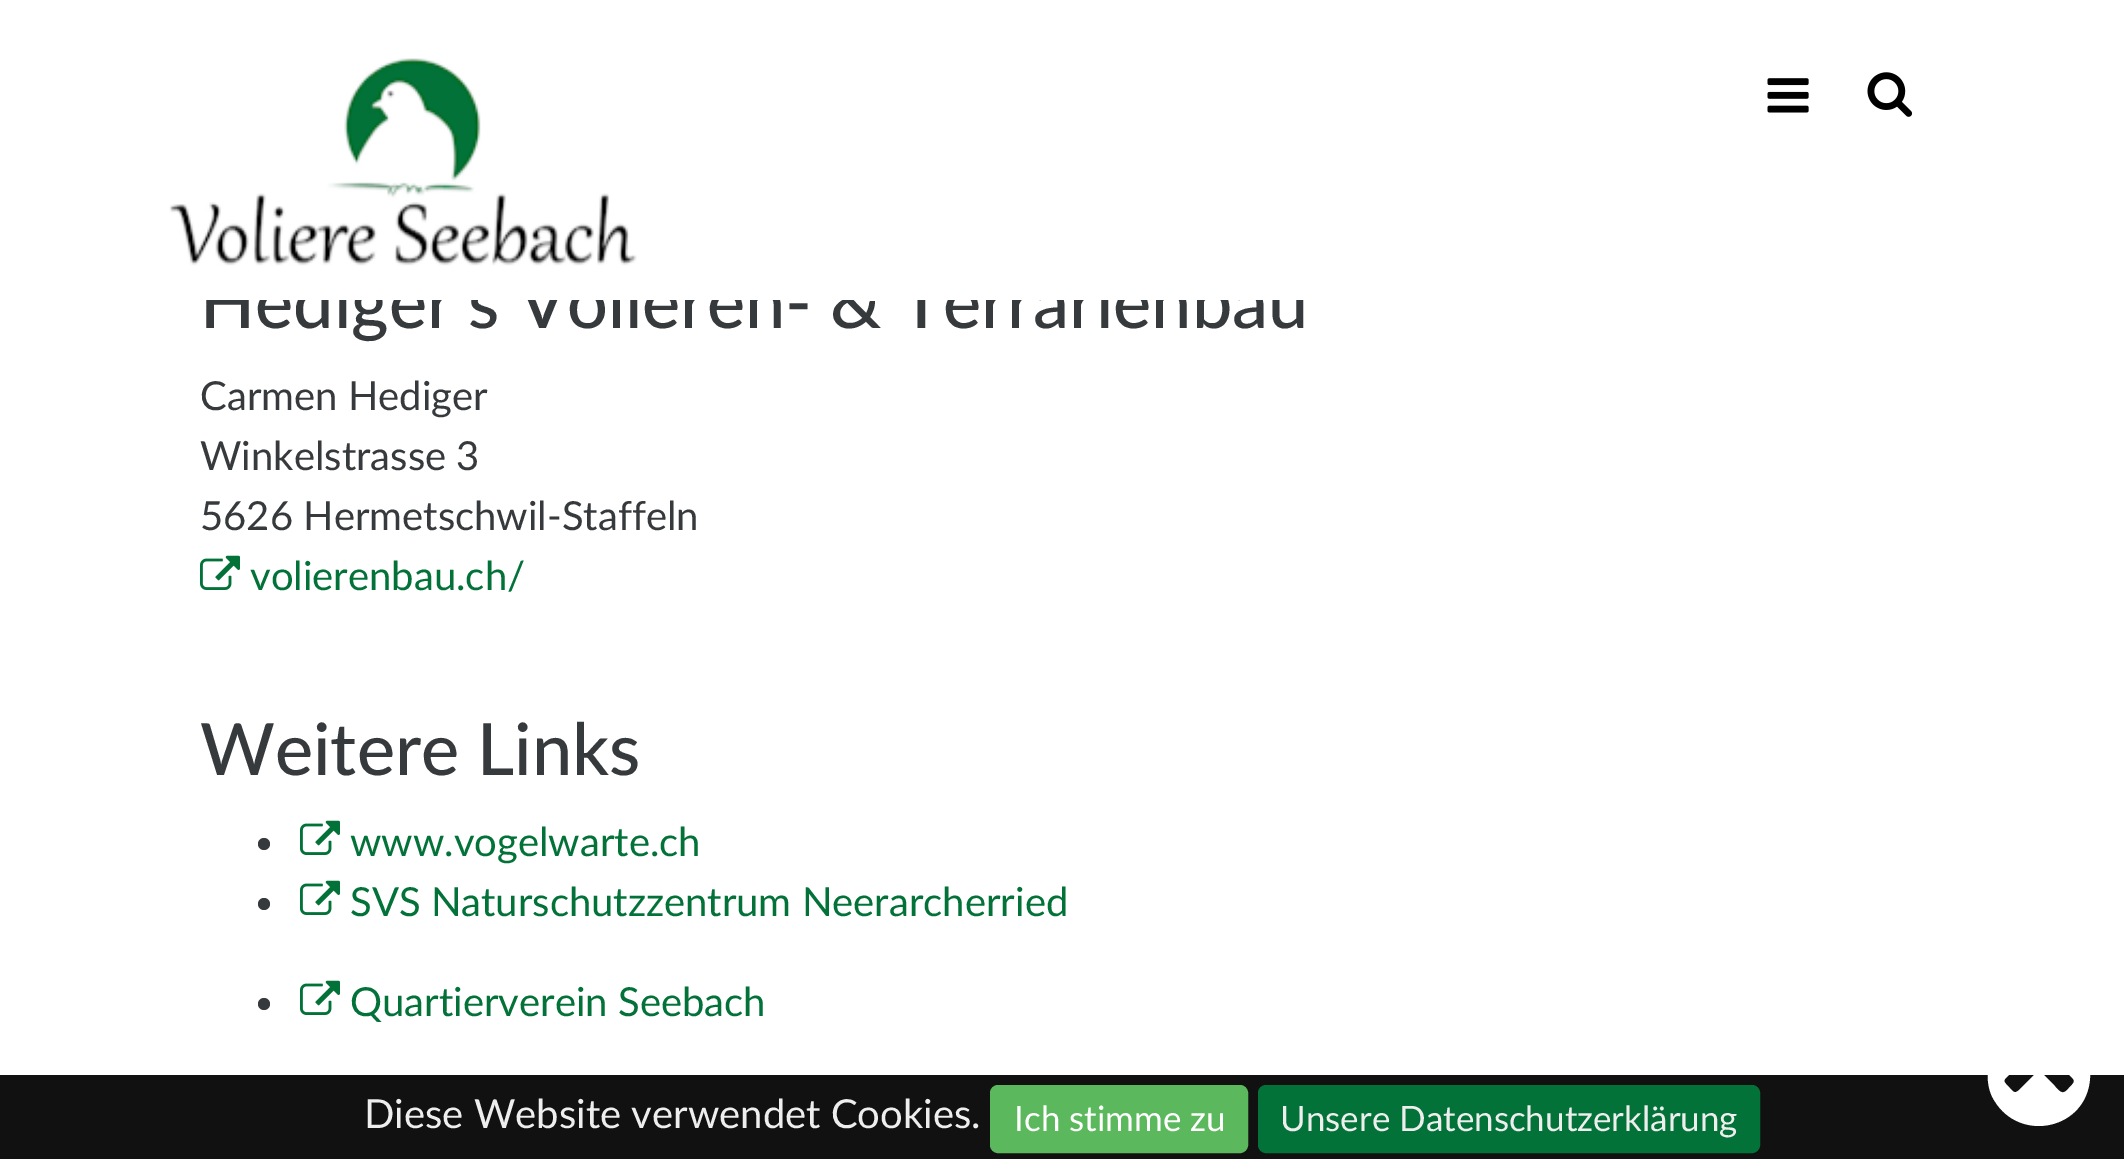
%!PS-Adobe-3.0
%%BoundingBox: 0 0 2124 1159
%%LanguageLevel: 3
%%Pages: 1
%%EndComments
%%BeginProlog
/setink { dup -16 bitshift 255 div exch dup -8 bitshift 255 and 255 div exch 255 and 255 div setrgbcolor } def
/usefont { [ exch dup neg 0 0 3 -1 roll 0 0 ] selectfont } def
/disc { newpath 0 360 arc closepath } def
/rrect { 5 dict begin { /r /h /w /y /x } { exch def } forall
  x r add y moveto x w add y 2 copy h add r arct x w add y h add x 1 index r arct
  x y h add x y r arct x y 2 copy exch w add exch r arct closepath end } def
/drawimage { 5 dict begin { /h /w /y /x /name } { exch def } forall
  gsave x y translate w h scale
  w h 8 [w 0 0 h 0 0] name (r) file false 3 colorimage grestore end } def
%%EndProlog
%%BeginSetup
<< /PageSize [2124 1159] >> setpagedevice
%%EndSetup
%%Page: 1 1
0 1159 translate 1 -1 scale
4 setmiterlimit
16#FFFFFF setink
0 0 2124 1159 rectfill
/Lato-Medium 72 usefont
16#373A3C setink
200 328 moveto (Hediger's Volieren- & Terrarienbau) show
16#FFFFFF setink
206 274 1098 26 rectfill
(img1.raw) 169 58 468 208 drawimage
(img2.raw) 1767 78 42 35 drawimage
(img3.raw) 1867 72 46 45 drawimage
/Lato-Regular 40 usefont
16#373A3C setink
[
    [(Carmen Hediger) 200 410]
    [(Winkelstrasse 3) 200 470]
    [(5626 Hermetschwil-Staffeln) 200 530]
] { aload pop moveto show } forall
(img4.raw) 200 555 40 35 drawimage
16#037239 setink
250 590 moveto (volierenbau.ch/) show
/Lato-Medium 72 usefont
16#373A3C setink
200 775 moveto (Weitere Links) show
264 844 6 disc fill
(img4.raw) 300 820 40 35 drawimage
/Lato-Regular 40 usefont
16#037239 setink
350 856 moveto (www.vogelwarte.ch) show
16#373A3C setink
264 904 6 disc fill
(img4.raw) 300 880 40 35 drawimage
16#037239 setink
350 916 moveto (SVS Naturschutzzentrum Neerarcherried) show
16#373A3C setink
264 1004 6 disc fill
(img4.raw) 300 980 40 35 drawimage
16#037239 setink
350 1016 moveto (Quartierverein Seebach) show
16#111111 setink
0 1075 2124 84 rectfill
16#EEEEEE setink
364 1128 moveto (Diese Website verwendet Cookies.) show
16#5CB85C setink
991.5 1086.5 255 65 6.5 rrect gsave fill grestore
3 setlinewidth
stroke
/Lato-Regular 35 usefont
16#FFFFFF setink
1014 1131 moveto (Ich stimme zu) show
16#037239 setink
1259.5 1086.5 499 65 6.5 rrect gsave fill grestore
stroke
16#EEEEEE setink
1280 1131 moveto (Unsere Datenschutzerklärung) show
16#FFFFFF setink
2066 1091 moveto 2078 1079 2076 1082 2062 1068 curveto 2047 1053 lineto 2039 1044 2039 1044 2031 1053 curveto 2006 1078 lineto 2002 1081 2006 1084 2008 1086 curveto 2014 1093 2015 1095 2022 1087 curveto 2039 1070 lineto 2053 1084 lineto 2055 1086 2061 1096 2066 1091 curveto closepath 2083 1049 moveto 2089 1058 2091 1068 2090 1078 curveto 2087 1129 2020 1144 1994 1100 curveto 1989 1092 1987 1081 1988 1071 curveto 1991 1021 2058 1005 2083 1049 curveto closepath fill
showpage
%%EOF
